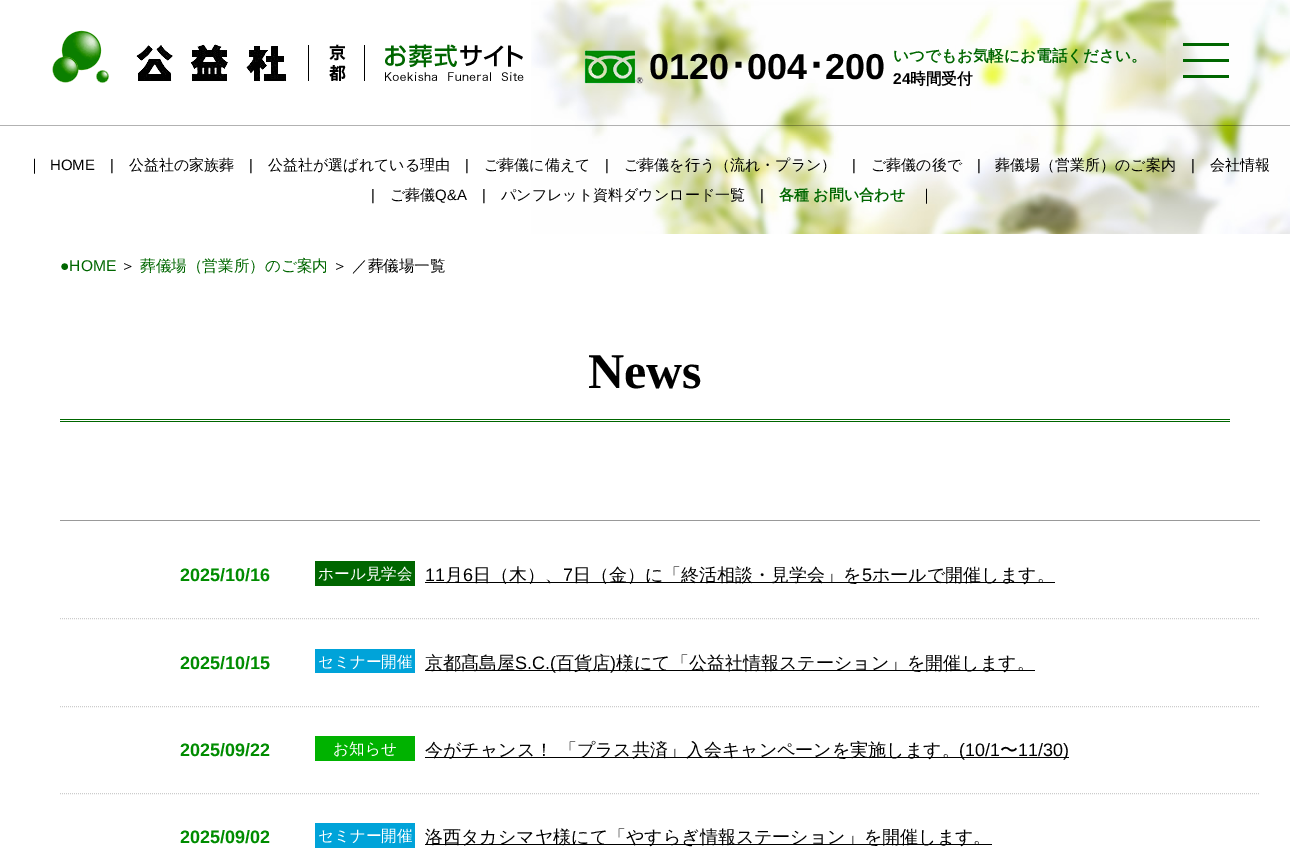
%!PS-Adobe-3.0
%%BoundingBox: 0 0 1290 850
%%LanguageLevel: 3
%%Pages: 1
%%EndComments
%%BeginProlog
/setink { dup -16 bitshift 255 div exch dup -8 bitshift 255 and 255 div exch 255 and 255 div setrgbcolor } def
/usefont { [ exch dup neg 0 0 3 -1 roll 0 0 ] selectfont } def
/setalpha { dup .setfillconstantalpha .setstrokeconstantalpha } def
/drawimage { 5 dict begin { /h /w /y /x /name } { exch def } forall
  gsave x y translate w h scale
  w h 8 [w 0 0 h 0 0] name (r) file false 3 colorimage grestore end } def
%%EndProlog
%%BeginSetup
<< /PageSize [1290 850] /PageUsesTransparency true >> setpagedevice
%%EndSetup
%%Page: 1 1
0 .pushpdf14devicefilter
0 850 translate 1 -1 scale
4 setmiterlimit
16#FFFFFF setink
0 0 1290 850 rectfill
(img1.raw) 531 0 759 234 drawimage
(img2.raw) 52 30 472 53 drawimage
(img3.raw) 584 50 60 34 drawimage
/LiberationSans-Bold 36 usefont
16#000000 setink
649 79 moveto (0120) show
/IPAGothic-Bold 36 usefont
729 79 moveto (･) show
/LiberationSans-Bold 36 usefont
747 79 moveto (004) show
/IPAGothic-Bold 36 usefont
807 79 moveto (･) show
/LiberationSans-Bold 36 usefont
825 79 moveto (200) show
/WenQuanYiZenHei-Bold 15.6 usefont
16#006600 setink
893 61 moveto (いつでもお気軽にお電話ください。) show
/LiberationSans-Bold 15.6 usefont
16#000000 setink
893 84 moveto (24) show
/WenQuanYiZenHei-Bold 15.6 usefont
910 84 moveto (時間受付) show
0.1 setalpha
[
    [1166 20 80 80 16#FFFFFF]
] { aload pop setink rectfill } forall
1 setalpha
[
    [1183 43 46 3 16#006600]
    [1183 59 46 3 16#006600]
    [1183 75 46 3 16#006600]
] { aload pop setink rectfill } forall
0.3 setalpha
[
    [0 125 1290 1 16#000000]
] { aload pop setink rectfill } forall
/WenQuanYiZenHei-Medium 15 usefont
1 setalpha
27 170 moveto (｜) show
/LiberationSans-Regular 15 usefont
50 170 moveto (HOME) show
110 170 moveto (|) show
/WenQuanYiZenHei-Medium 15 usefont
129 170 moveto (公益社の家族葬) show
/LiberationSans-Regular 15 usefont
249 170 moveto (|) show
/WenQuanYiZenHei-Medium 15 usefont
268 170 moveto (公益社が選ばれている理由) show
/LiberationSans-Regular 15 usefont
465 170 moveto (|) show
/WenQuanYiZenHei-Medium 15 usefont
484 170 moveto (ご葬儀に備えて) show
/LiberationSans-Regular 15 usefont
605 170 moveto (|) show
/WenQuanYiZenHei-Medium 15 usefont
624 170 moveto (ご葬儀を行う（流れ・プラン）) show
/LiberationSans-Regular 15 usefont
852 170 moveto (|) show
/WenQuanYiZenHei-Medium 15 usefont
871 170 moveto (ご葬儀の後で) show
/LiberationSans-Regular 15 usefont
977 170 moveto (|) show
/WenQuanYiZenHei-Medium 15 usefont
995 170 moveto (葬儀場（営業所）のご案内) show
/LiberationSans-Regular 15 usefont
1191 170 moveto (|) show
/WenQuanYiZenHei-Medium 15 usefont
1210 170 moveto (会社情報) show
/LiberationSans-Regular 15 usefont
371 200 moveto (|) show
/WenQuanYiZenHei-Medium 15 usefont
390 200 moveto (ご葬儀) show
/LiberationSans-Regular 15 usefont
435 200 moveto (Q&A) show
482 200 moveto (|) show
/WenQuanYiZenHei-Medium 15 usefont
501 200 moveto (パンフレット資料ダウンロード一覧) show
/LiberationSans-Regular 15 usefont
760 200 moveto (|) show
/WenQuanYiZenHei-Bold 15 usefont
16#006600 setink
779 200 moveto (各種 お問い合わせ) show
/WenQuanYiZenHei-Medium 15 usefont
16#000000 setink
919 200 moveto (｜) show
/LiberationSans-Regular 15.6 usefont
16#006600 setink
60 271 moveto (●HOME) show
/WenQuanYiZenHei-Medium 15.6 usefont
16#000000 setink
120 271 moveto (＞) show
16#006600 setink
140 271 moveto (葬儀場（営業所）のご案内) show
16#000000 setink
332 271 moveto (＞) show
352 271 moveto (／葬儀場一覧) show
16#006600 setink
60 419 1170 1 rectfill
/LiberationSerif-Bold 50 usefont
16#000000 setink
588 388 moveto (News) show
16#006600 setink
60 421 1170 1 rectfill
16#999999 setink
60 520 1200 1 rectfill
/LiberationSans-Bold 18 usefont
16#008C00 setink
180 581 moveto (2025/10/16) show
16#006600 setink
315 561 100 25 rectfill
/WenQuanYiZenHei-Medium 15.6 usefont
16#FFFFFF setink
318 579 moveto (ホール見学会) show
/LiberationSans-Regular 18 usefont
16#000000 setink
425 581 moveto (11) show
425 582 630 1 rectfill
/WenQuanYiZenHei-Medium 18 usefont
445 581 moveto (月) show
/LiberationSans-Regular 18 usefont
463 581 moveto (6) show
/WenQuanYiZenHei-Medium 18 usefont
473 581 moveto (日（木）、) show
/LiberationSans-Regular 18 usefont
563 581 moveto (7) show
/WenQuanYiZenHei-Medium 18 usefont
573 581 moveto (日（金）に「終活相談・見学会」を) show
/LiberationSans-Regular 18 usefont
862 581 moveto (5) show
/WenQuanYiZenHei-Medium 18 usefont
872 581 moveto (ホールで開催します。) show
16#CCCCCC setink
[1 1] 0 setdash
60 618.5 moveto 1260 618.5 lineto stroke
/LiberationSans-Bold 18 usefont
16#008C00 setink
180 669 moveto (2025/10/15) show
16#00A3D9 setink
315 649 100 24 rectfill
/WenQuanYiZenHei-Medium 15.6 usefont
16#FFFFFF setink
318 667 moveto (セミナー開催) show
16#000000 setink
425 670 610 1 rectfill
/WenQuanYiZenHei-Medium 18 usefont
425 669 moveto (京都髙島屋) show
/LiberationSans-Regular 18 usefont
515 669 moveto (S.C.\() show
/WenQuanYiZenHei-Medium 18 usefont
556 669 moveto (百貨店) show
/LiberationSans-Regular 18 usefont
610 669 moveto (\)) show
/WenQuanYiZenHei-Medium 18 usefont
616 669 moveto (様にて「公益社情報ステーション」を開催します。) show
16#CCCCCC setink
60 706.5 moveto 1260 706.5 lineto stroke
/LiberationSans-Bold 18 usefont
16#008C00 setink
180 756 moveto (2025/09/22) show
16#00B200 setink
315 736 100 25 rectfill
/WenQuanYiZenHei-Medium 15.6 usefont
16#FFFFFF setink
333 754 moveto (お知らせ) show
16#000000 setink
425 757 644 1 rectfill
/WenQuanYiZenHei-Medium 18 usefont
425 756 moveto (今がチャンス！ 「プラス共済」入会キャンペーンを実施します。) show
/LiberationSans-Regular 18 usefont
959 756 moveto (\(10/1) show
/WenQuanYiZenHei-Medium 18 usefont
1000 756 moveto (〜) show
/LiberationSans-Regular 18 usefont
1018 756 moveto (11/30\)) show
16#CCCCCC setink
60 793.5 moveto 1260 793.5 lineto stroke
/LiberationSans-Bold 18 usefont
16#008C00 setink
180 843 moveto (2025/09/02) show
16#00A3D9 setink
315 823 100 25 rectfill
/WenQuanYiZenHei-Medium 15.6 usefont
16#FFFFFF setink
318 841 moveto (セミナー開催) show
16#000000 setink
425 844 567 1 rectfill
/WenQuanYiZenHei-Medium 18 usefont
425 843 moveto (洛西タカシマヤ様にて「やすらぎ情報ステーション」を開催します。) show
.poppdf14devicefilter showpage
%%EOF
